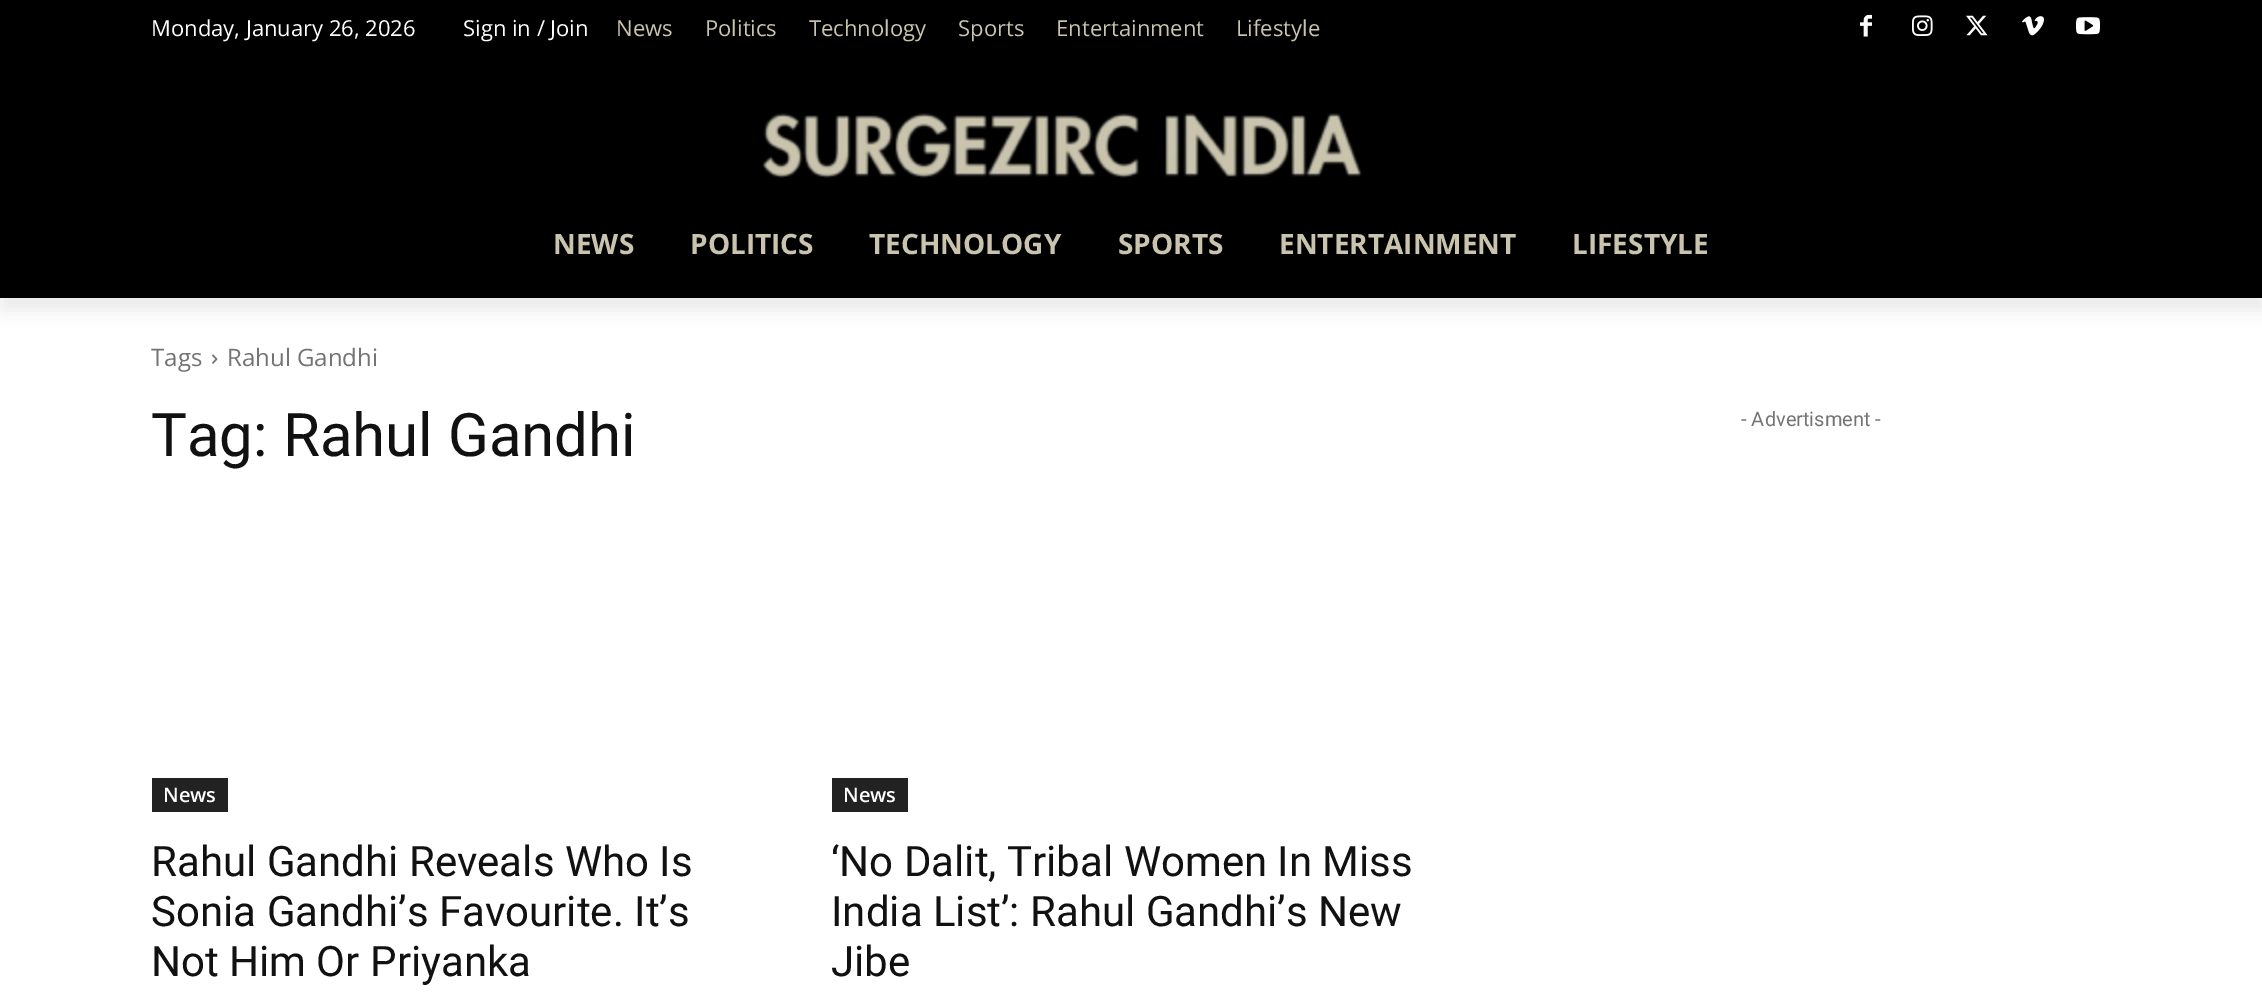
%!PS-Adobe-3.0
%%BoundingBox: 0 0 2262 1004
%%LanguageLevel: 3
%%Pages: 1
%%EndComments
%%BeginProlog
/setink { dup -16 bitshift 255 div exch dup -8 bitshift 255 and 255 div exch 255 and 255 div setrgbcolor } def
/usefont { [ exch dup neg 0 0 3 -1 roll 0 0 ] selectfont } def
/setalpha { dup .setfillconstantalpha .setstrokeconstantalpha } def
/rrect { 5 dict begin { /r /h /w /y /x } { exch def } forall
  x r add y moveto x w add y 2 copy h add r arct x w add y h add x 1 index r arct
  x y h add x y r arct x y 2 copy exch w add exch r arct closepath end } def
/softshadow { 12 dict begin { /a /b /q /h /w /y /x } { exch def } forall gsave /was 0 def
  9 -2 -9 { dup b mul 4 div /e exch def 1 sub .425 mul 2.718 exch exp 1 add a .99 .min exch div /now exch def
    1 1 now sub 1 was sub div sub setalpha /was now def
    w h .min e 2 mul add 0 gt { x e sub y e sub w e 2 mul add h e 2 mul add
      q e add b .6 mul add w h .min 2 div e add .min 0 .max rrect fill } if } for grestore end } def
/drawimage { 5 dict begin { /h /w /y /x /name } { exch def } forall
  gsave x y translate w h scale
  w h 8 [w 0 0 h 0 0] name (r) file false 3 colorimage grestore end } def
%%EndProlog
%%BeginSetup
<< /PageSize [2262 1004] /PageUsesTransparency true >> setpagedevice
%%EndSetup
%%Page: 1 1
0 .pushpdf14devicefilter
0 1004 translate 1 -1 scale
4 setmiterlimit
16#FFFFFF setink
0 0 2262 1004 rectfill
16#000000 setink
0 0 2262 298 rectfill
(img1.raw) 1860 14 12 23 drawimage
(img2.raw) 1912 15 21 21 drawimage
(img3.raw) 1966 15 22 21 drawimage
(img4.raw) 2022 16 22 20 drawimage
(img5.raw) 2076 17 24 18 drawimage
(img6.raw) 762 113 600 65 drawimage
gsave
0 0 moveto 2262 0 lineto 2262 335 lineto 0 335 lineto closepath 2 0 moveto 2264 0 lineto 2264 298 lineto 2 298 lineto closepath eoclip newpath
2 12 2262 298 0 8 0.08 softshadow
grestore
/OpenSans-Regular 22 usefont
16#FFFFFF setink
151 36 moveto (Monday, January 26, 2026) show
463 36 moveto (Sign in / Join) show
16#CAC3AD setink
[
    [(News) 616 36]
    [(Politics) 705 36]
    [(Technology) 809 36]
    [(Sports) 958 36]
    [(Entertainment) 1056 36]
    [(Lifestyle) 1236 36]
] { aload pop moveto show } forall
/OpenSans-Bold 28 usefont
[
    [(NEWS) 553 254]
    [(POLITICS) 690 254]
    [(TECHNOLOGY) 869 254]
    [(SPORTS) 1118 254]
    [(ENTERTAINMENT) 1279 254]
    [(LIFESTYLE) 1572 254]
] { aload pop moveto show } forall
/OpenSans-Regular 24 usefont
16#747474 setink
151 366 moveto (Tags) show
(img7.raw) 212 354 6 10 drawimage
227 366 moveto (Rahul Gandhi) show
/Roboto-Regular 60 usefont
16#111111 setink
151 456 moveto (Tag: Rahul Gandhi) show
16#222222 setink
152 778 76 34 rectfill
/OpenSans-SemiBold 20 usefont
16#FFFFFF setink
163 802 moveto (News) show
/Roboto-Regular 42 usefont
16#111111 setink
[
    [(Rahul Gandhi Reveals Who Is) 151 876]
    [(Sonia Gandhi’s Favourite. It’s) 151 926]
    [(Not Him Or Priyanka) 151 976]
] { aload pop moveto show } forall
16#222222 setink
832 778 76 34 rectfill
/OpenSans-SemiBold 20 usefont
16#FFFFFF setink
843 802 moveto (News) show
/Roboto-Regular 42 usefont
16#111111 setink
[
    [(‘No Dalit, Tribal Women In Miss) 831 876]
    [(India List’: Rahul Gandhi’s New) 831 926]
    [(Jibe) 831 976]
] { aload pop moveto show } forall
/Roboto-Regular 20 usefont
16#747474 setink
1741 426 moveto (- Advertisment -) show
.poppdf14devicefilter showpage
%%EOF
